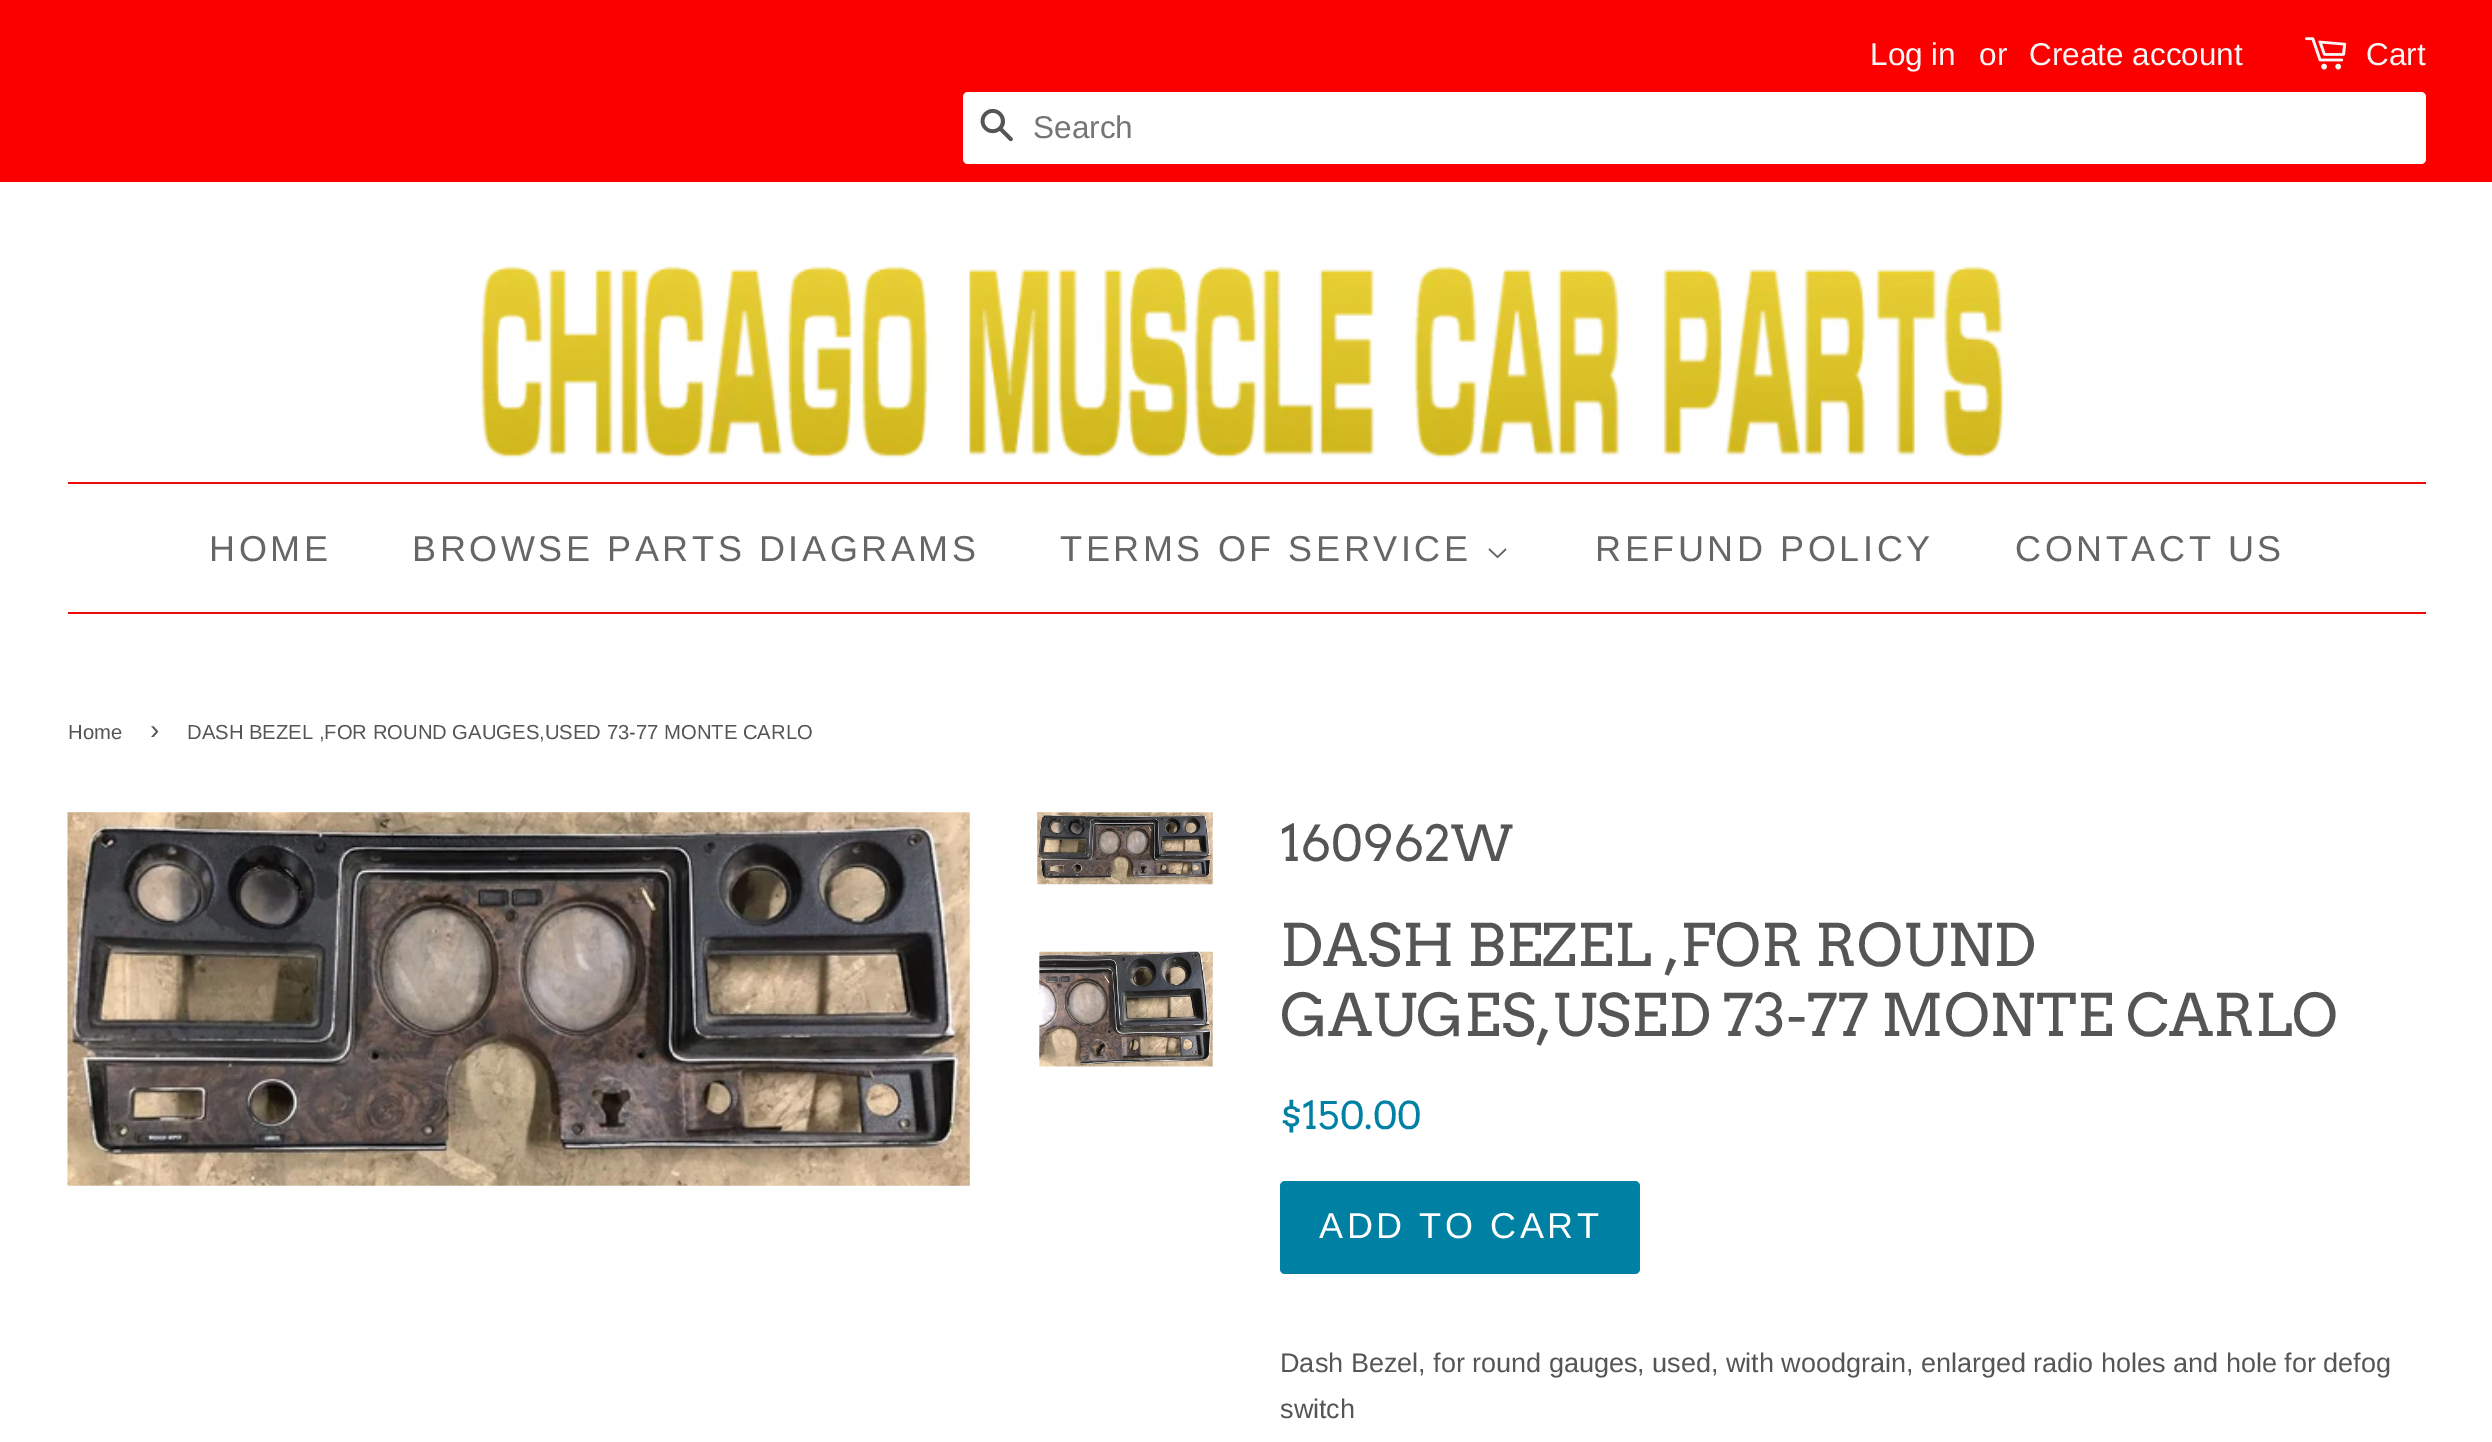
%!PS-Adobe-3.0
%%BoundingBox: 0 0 2492 1442
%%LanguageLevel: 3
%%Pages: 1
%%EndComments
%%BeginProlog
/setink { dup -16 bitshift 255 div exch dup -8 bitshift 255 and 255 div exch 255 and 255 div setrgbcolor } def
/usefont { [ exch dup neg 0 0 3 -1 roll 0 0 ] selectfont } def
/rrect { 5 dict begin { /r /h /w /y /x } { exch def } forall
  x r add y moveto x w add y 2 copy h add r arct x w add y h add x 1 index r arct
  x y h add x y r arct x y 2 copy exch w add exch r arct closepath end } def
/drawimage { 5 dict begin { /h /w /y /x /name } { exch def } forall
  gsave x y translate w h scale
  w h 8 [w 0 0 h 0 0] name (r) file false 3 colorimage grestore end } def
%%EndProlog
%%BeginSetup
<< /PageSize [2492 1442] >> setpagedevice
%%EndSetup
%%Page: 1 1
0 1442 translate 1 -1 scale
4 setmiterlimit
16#FFFFFF setink
0 0 2492 1442 rectfill
16#FC0000 setink
0 0 2492 182 rectfill
/LiberationSans-Regular 31.5 usefont
16#F7F7F7 setink
[
    [(Log in) 1870 65]
    [(or) 1979 65]
    [(Create account) 2029 65]
] { aload pop moveto show } forall
(img1.raw) 2305 37 42 33 drawimage
2366 65 moveto (Cart) show
16#FFFFFF setink
963 92 1463 72 5 rrect fill
(img2.raw) 980 108 33 34 drawimage
16#757575 setink
1033 138 moveto (Search) show
(img3.raw) 480 266 1524 192 drawimage
16#ED0A0A setink
68 482 2358 2 rectfill
68 612 2358 2 rectfill
/LiberationSans-Regular 36 usefont
16#666666 setink
209 561 moveto 3.6 0 (HOME) ashow
412 561 moveto 3.6 0 (BROWSE PARTS DIAGRAMS) ashow
1060 561 moveto 3.6 0 (TERMS OF SERVICE) ashow
(img4.raw) 1488 548 19 11 drawimage
1595 561 moveto 3.6 0 (REFUND POLICY) ashow
2015 561 moveto 3.6 0 (CONTACT US) ashow
/LiberationSans-Regular 20.25 usefont
16#555555 setink
68 739 moveto (Home) show
/LiberationSans-Regular 28 usefont
150 739 moveto (›) show
/LiberationSans-Regular 20.25 usefont
187 739 moveto (DASH BEZEL ,FOR ROUND GAUGES,USED 73-77 MONTE CARLO) show
(img5.raw) 67 812 903 374 drawimage
(img6.raw) 1037 812 176 73 drawimage
(img7.raw) 1039 951 174 116 drawimage
/Arvo-Regular 49.5 usefont
1280 861 moveto (160962W) show
/Arvo-Regular 58.5 usefont
1280 966 moveto (DASH BEZEL ,FOR ROUND) show
1280 1036 moveto (GAUGES,USED 73-77 MONTE CARLO) show
/Arvo-Regular 38 usefont
16#0081A3 setink
1280 1129 moveto ($150.00) show
1280 1181 360 93 5 rrect fill
/LiberationSans-Regular 36 usefont
16#FFFFFF setink
1319 1238 moveto 3.6 0 (ADD TO CART) ashow
/LiberationSans-Regular 27 usefont
16#555555 setink
1280 1372 moveto (Dash Bezel, for round gauges, used, with woodgrain, enlarged radio holes and hole for defog) show
1280 1418 moveto (switch) show
showpage
%%EOF
